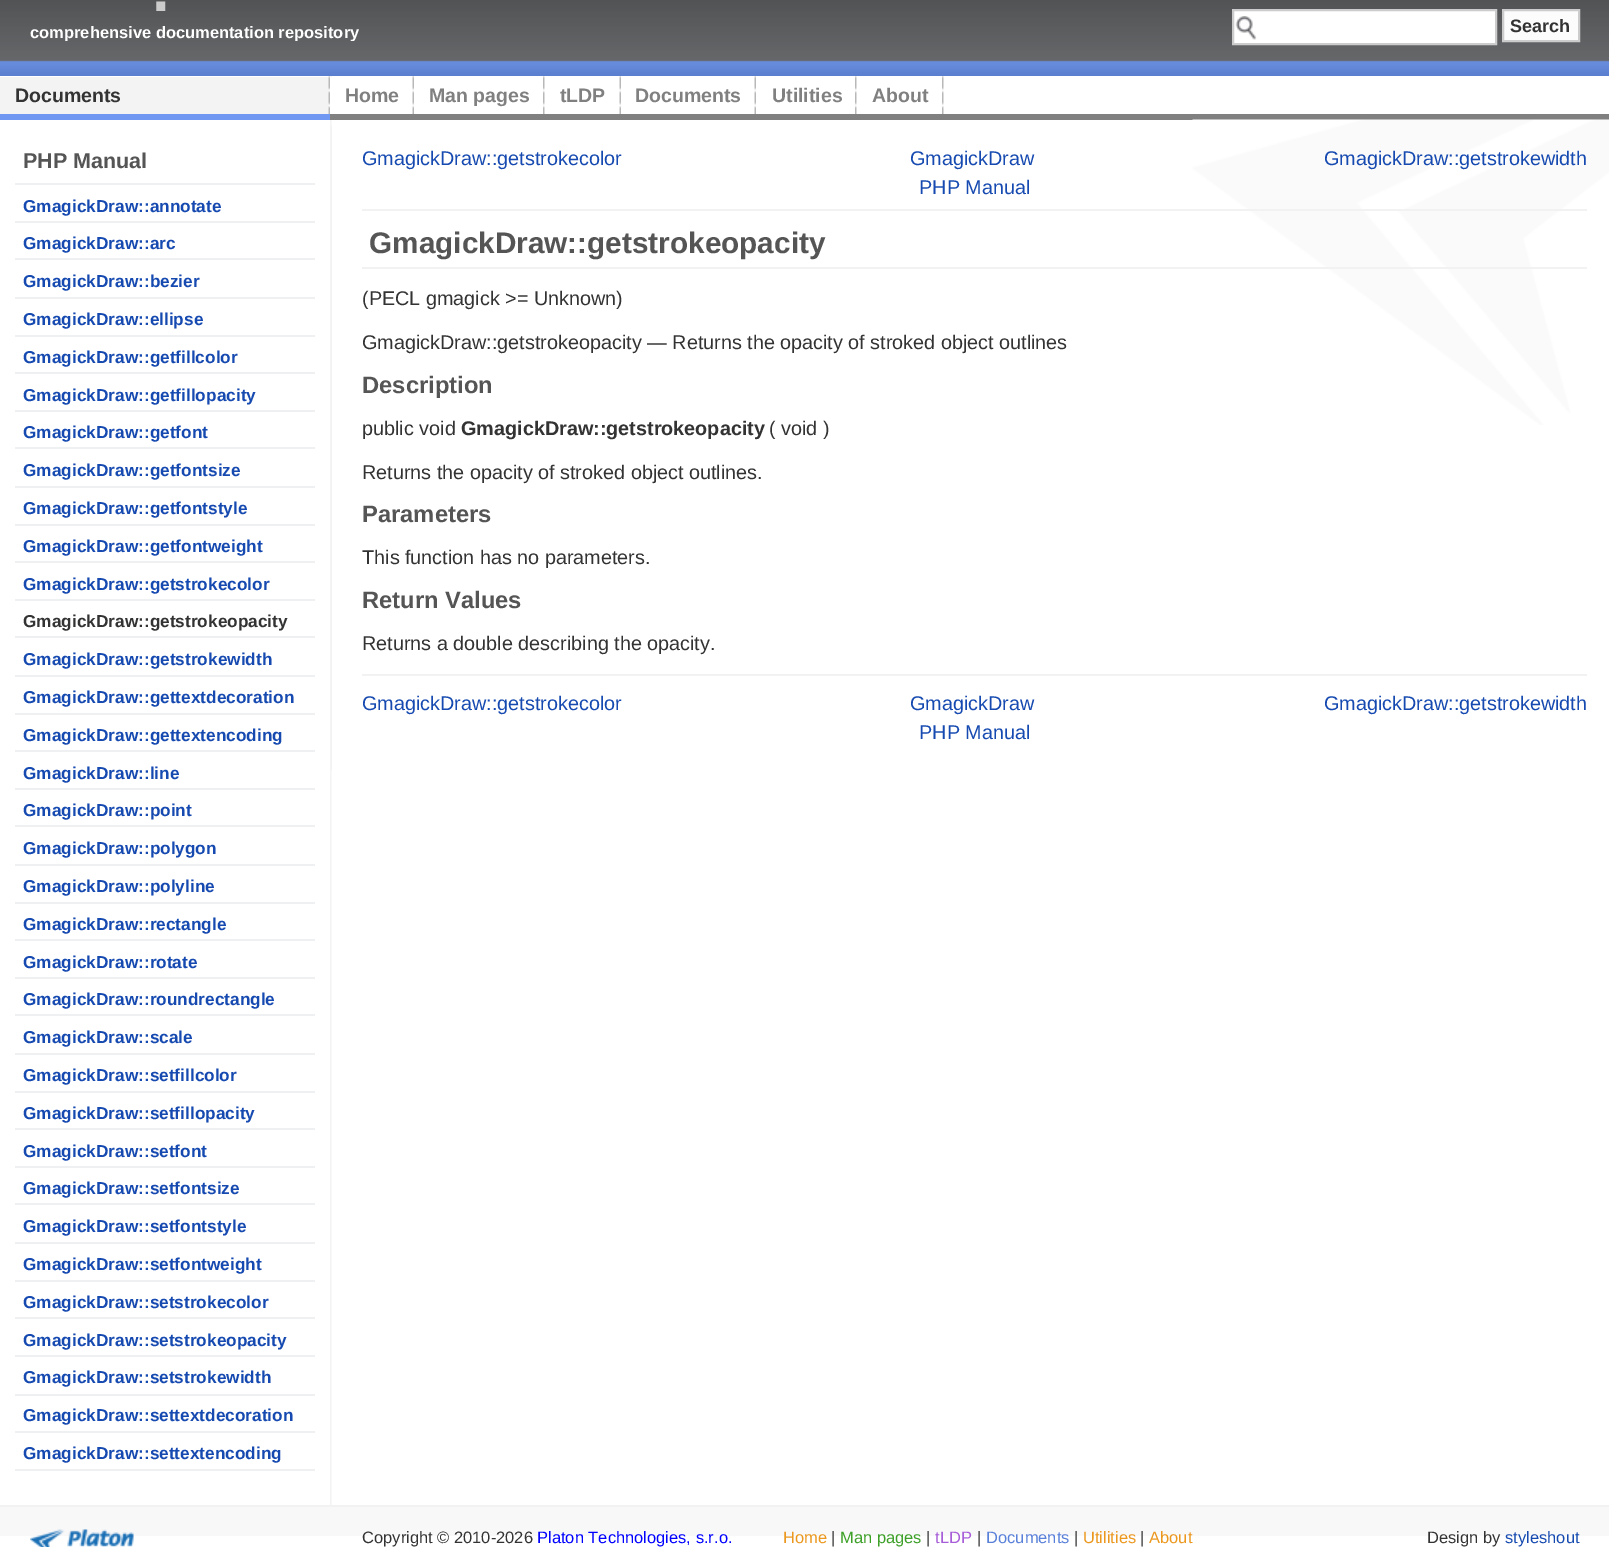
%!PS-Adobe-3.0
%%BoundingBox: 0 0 1609 1547
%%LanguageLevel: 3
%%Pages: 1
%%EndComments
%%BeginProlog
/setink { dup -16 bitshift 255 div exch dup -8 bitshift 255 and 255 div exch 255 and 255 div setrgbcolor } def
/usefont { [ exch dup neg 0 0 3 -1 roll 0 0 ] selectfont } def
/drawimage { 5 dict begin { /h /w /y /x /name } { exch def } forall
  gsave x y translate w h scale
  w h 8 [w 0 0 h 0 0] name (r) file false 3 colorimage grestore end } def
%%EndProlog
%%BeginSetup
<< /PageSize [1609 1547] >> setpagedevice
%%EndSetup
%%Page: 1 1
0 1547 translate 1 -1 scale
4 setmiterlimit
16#FFFFFF setink
0 0 1609 1547 rectfill
(img1.raw) 330 76 2 1429 drawimage
(img2.raw) 0 0 1609 76 drawimage
/LiberationSans-Bold 63 usefont
16#CCCCCC setink
152 11 moveto -4 0 (.) ashow
gsave
30 23 329 18 rectclip
/LiberationSans-Bold 16.5 usefont
16#FFFFFF setink
30 38 moveto (comprehensive documentation repository) show
grestore
16#FFFFFF setink
1234 11 261 32 rectfill
(img3.raw) 1235 16 22 24 drawimage
16#CCCCCC setink
2 setlinewidth
1233 10 263 34 rectstroke
16#FCFCFC setink
1503 10 moveto 1579 10 lineto 1579 41 lineto 1503 41 lineto closepath gsave fill grestore
16#CCCCCC setink
stroke
/LiberationSans-Bold 18 usefont
16#333333 setink
1510 32 moveto (Search) show
16#808080 setink
944 114 665 6 rectfill
16#F3F3F3 setink
0 77 329 37 rectfill
(img4.raw) 328 76 2 38 drawimage
16#7098F2 setink
0 114 330 6 rectfill
/LiberationSans-Bold 19.5 usefont
16#333333 setink
15 102 moveto (Documents) show
16#FFFFFF setink
330 77 2 37 rectfill
(img5.raw) 412 76 2 38 drawimage
16#808080 setink
330 114 614 6 rectfill
345 102 moveto (Home) show
(img6.raw) 543 76 2 38 drawimage
429 102 moveto (Man pages) show
(img5.raw) 619 76 2 38 drawimage
560 102 moveto (tLDP) show
(img5.raw) 754 76 2 38 drawimage
635 102 moveto (Documents) show
(img6.raw) 855 76 2 38 drawimage
772 102 moveto (Utilities) show
(img6.raw) 942 76 2 38 drawimage
872 102 moveto (About) show
(img7.raw) 1192 119 417 306 drawimage
/LiberationSans-Bold 21.5 usefont
16#555555 setink
23 168 moveto (PHP Manual) show
16#EFF0F1 setink
15 183 300 2 rectfill
15 221 300 2 rectfill
/LiberationSans-Bold 17.25 usefont
16#164AB1 setink
23 212 moveto (GmagickDraw::annotate) show
16#EFF0F1 setink
15 258 300 2 rectfill
16#164AB1 setink
23 249 moveto (GmagickDraw::arc) show
16#EFF0F1 setink
15 297 300 2 rectfill
16#164AB1 setink
23 287 moveto (GmagickDraw::bezier) show
16#EFF0F1 setink
15 335 300 2 rectfill
16#164AB1 setink
23 325 moveto (GmagickDraw::ellipse) show
16#EFF0F1 setink
15 372 300 2 rectfill
16#164AB1 setink
23 363 moveto (GmagickDraw::getfillcolor) show
16#EFF0F1 setink
15 410 300 2 rectfill
16#164AB1 setink
23 401 moveto (GmagickDraw::getfillopacity) show
16#EFF0F1 setink
15 447 300 2 rectfill
16#164AB1 setink
23 438 moveto (GmagickDraw::getfont) show
16#EFF0F1 setink
15 486 300 2 rectfill
16#164AB1 setink
23 476 moveto (GmagickDraw::getfontsize) show
16#EFF0F1 setink
15 524 300 2 rectfill
16#164AB1 setink
23 514 moveto (GmagickDraw::getfontstyle) show
16#EFF0F1 setink
15 561 300 2 rectfill
16#164AB1 setink
23 552 moveto (GmagickDraw::getfontweight) show
16#EFF0F1 setink
15 599 300 2 rectfill
16#164AB1 setink
23 590 moveto (GmagickDraw::getstrokecolor) show
16#EFF0F1 setink
15 636 300 2 rectfill
16#333333 setink
23 627 moveto (GmagickDraw::getstrokeopacity) show
16#EFF0F1 setink
15 675 300 2 rectfill
16#164AB1 setink
23 665 moveto (GmagickDraw::getstrokewidth) show
16#EFF0F1 setink
15 713 300 2 rectfill
16#164AB1 setink
23 703 moveto (GmagickDraw::gettextdecoration) show
16#EFF0F1 setink
15 750 300 2 rectfill
16#164AB1 setink
23 741 moveto (GmagickDraw::gettextencoding) show
16#EFF0F1 setink
15 788 300 2 rectfill
16#164AB1 setink
23 779 moveto (GmagickDraw::line) show
16#EFF0F1 setink
15 825 300 2 rectfill
16#164AB1 setink
23 816 moveto (GmagickDraw::point) show
16#EFF0F1 setink
15 864 300 2 rectfill
16#164AB1 setink
23 854 moveto (GmagickDraw::polygon) show
16#EFF0F1 setink
15 902 300 2 rectfill
16#164AB1 setink
23 892 moveto (GmagickDraw::polyline) show
16#EFF0F1 setink
15 939 300 2 rectfill
16#164AB1 setink
23 930 moveto (GmagickDraw::rectangle) show
16#EFF0F1 setink
15 977 300 2 rectfill
16#164AB1 setink
23 968 moveto (GmagickDraw::rotate) show
16#EFF0F1 setink
15 1014 300 2 rectfill
16#164AB1 setink
23 1005 moveto (GmagickDraw::roundrectangle) show
16#EFF0F1 setink
15 1053 300 2 rectfill
16#164AB1 setink
23 1043 moveto (GmagickDraw::scale) show
16#EFF0F1 setink
15 1091 300 2 rectfill
16#164AB1 setink
23 1081 moveto (GmagickDraw::setfillcolor) show
16#EFF0F1 setink
15 1128 300 2 rectfill
16#164AB1 setink
23 1119 moveto (GmagickDraw::setfillopacity) show
16#EFF0F1 setink
15 1166 300 2 rectfill
16#164AB1 setink
23 1157 moveto (GmagickDraw::setfont) show
16#EFF0F1 setink
15 1203 300 2 rectfill
16#164AB1 setink
23 1194 moveto (GmagickDraw::setfontsize) show
16#EFF0F1 setink
15 1242 300 2 rectfill
16#164AB1 setink
23 1232 moveto (GmagickDraw::setfontstyle) show
16#EFF0F1 setink
15 1280 300 2 rectfill
16#164AB1 setink
23 1270 moveto (GmagickDraw::setfontweight) show
16#EFF0F1 setink
15 1317 300 2 rectfill
16#164AB1 setink
23 1308 moveto (GmagickDraw::setstrokecolor) show
16#EFF0F1 setink
15 1355 300 2 rectfill
16#164AB1 setink
23 1346 moveto (GmagickDraw::setstrokeopacity) show
16#EFF0F1 setink
15 1394 300 2 rectfill
16#164AB1 setink
23 1383 moveto (GmagickDraw::setstrokewidth) show
16#EFF0F1 setink
15 1431 300 2 rectfill
16#164AB1 setink
23 1421 moveto (GmagickDraw::settextdecoration) show
16#EFF0F1 setink
15 1469 300 2 rectfill
16#164AB1 setink
23 1459 moveto (GmagickDraw::settextencoding) show
16#F2F2F2 setink
331 126 1 644 rectfill
/LiberationSans-Regular 19.8 usefont
16#164AB1 setink
[
    [(GmagickDraw::getstrokecolor) 362 165]
    [(GmagickDraw) 910 165]
    [(GmagickDraw::getstrokewidth) 1324 165]
    [(PHP Manual) 919 194]
] { aload pop moveto show } forall
16#F2F2F2 setink
362 209 1225 2 rectfill
362 267 1225 2 rectfill
/LiberationSans-Bold 29.75 usefont
16#555555 setink
369 253 moveto (GmagickDraw::getstrokeopacity) show
/LiberationSans-Regular 19.8 usefont
16#333333 setink
362 305 moveto (\(PECL gmagick >= Unknown\)) show
362 349 moveto (GmagickDraw::getstrokeopacity — Returns the opacity of stroked object outlines) show
/LiberationSans-Bold 23.75 usefont
16#555555 setink
362 393 moveto (Description) show
/LiberationSans-Regular 19.8 usefont
16#333333 setink
362 435 moveto (public void) show
/LiberationSans-Bold 19.8 usefont
461 435 moveto (GmagickDraw::getstrokeopacity) show
/LiberationSans-Regular 19.8 usefont
769 435 moveto (\( void \)) show
362 479 moveto (Returns the opacity of stroked object outlines.) show
/LiberationSans-Bold 23.75 usefont
16#555555 setink
362 522 moveto (Parameters) show
/LiberationSans-Regular 19.8 usefont
16#333333 setink
362 564 moveto (This function has no parameters.) show
/LiberationSans-Bold 23.75 usefont
16#555555 setink
362 608 moveto (Return Values) show
/LiberationSans-Regular 19.8 usefont
16#333333 setink
362 650 moveto (Returns a double describing the opacity.) show
16#F2F2F2 setink
362 674 1225 2 rectfill
16#164AB1 setink
[
    [(GmagickDraw::getstrokecolor) 362 710]
    [(GmagickDraw) 910 710]
    [(GmagickDraw::getstrokewidth) 1324 710]
    [(PHP Manual) 919 739]
] { aload pop moveto show } forall
16#F9F8F9 setink
0 1507 1609 29 rectfill
16#F2F2F2 setink
0 1505 1609 2 rectfill
(img8.raw) 30 1529 104 18 drawimage
/LiberationSans-Regular 16.5 usefont
16#333333 setink
362 1543 moveto (Copyright © 2010-2026) show
16#0000FF setink
537 1543 moveto (Platon Technologies, s.r.o.) show
16#EC981F setink
783 1543 moveto (Home) show
16#333333 setink
831 1543 moveto (|) show
16#3DA028 setink
840 1543 moveto (Man pages) show
16#333333 setink
926 1543 moveto (|) show
16#A75ED8 setink
935 1543 moveto (tLDP) show
16#333333 setink
977 1543 moveto (|) show
16#5A81DA setink
986 1543 moveto (Documents) show
16#333333 setink
1074 1543 moveto (|) show
16#EC981F setink
1083 1543 moveto (Utilities) show
16#333333 setink
1140 1543 moveto (|) show
16#EC981F setink
1149 1543 moveto (About) show
16#333333 setink
1427 1543 moveto (Design by) show
16#164AB1 setink
1505 1543 moveto (styleshout) show
showpage
%%EOF
